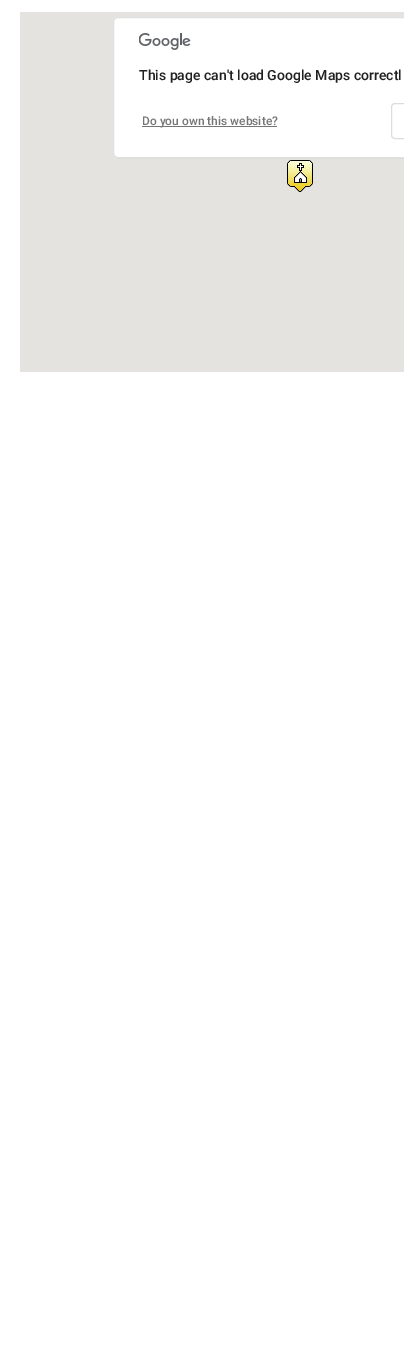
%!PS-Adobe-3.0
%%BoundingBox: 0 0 404 1365
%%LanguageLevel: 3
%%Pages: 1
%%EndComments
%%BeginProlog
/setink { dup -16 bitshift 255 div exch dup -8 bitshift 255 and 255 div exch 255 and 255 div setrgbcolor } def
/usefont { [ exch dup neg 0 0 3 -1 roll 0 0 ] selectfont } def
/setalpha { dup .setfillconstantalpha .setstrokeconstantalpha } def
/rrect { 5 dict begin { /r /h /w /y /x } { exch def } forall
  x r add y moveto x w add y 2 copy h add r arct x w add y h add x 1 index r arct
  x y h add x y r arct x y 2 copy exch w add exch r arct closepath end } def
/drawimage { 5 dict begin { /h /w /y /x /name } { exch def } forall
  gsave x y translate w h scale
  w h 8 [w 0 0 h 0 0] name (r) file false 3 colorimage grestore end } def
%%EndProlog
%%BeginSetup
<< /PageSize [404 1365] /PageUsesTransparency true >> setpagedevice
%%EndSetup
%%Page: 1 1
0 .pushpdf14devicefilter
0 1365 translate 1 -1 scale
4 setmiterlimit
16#FFFFFF setink
0 0 404 1365 rectfill
16#E5E3DF setink
20 12 384 360 rectfill
(img1.raw) 287 160 26 32 drawimage
16#FFFFFF setink
113 17 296 141 5 rrect fill
0.12 setalpha
16#000000 setink
113.5 17.5 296 140 4.5 rrect stroke
1 setalpha
(img2.raw) 139 33 52 17 drawimage
/Roboto-Medium 14 usefont
16#212121 setink
139 80 moveto (This page can't load Google Maps correctl) show
16#757575 setink
142 126 135 1 rectfill
/Roboto-Medium 12 usefont
142 125 moveto (Do you own this website?) show
16#DADCE0 setink
391.5 103.5 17 35 3.5 rrect stroke
.poppdf14devicefilter showpage
%%EOF
